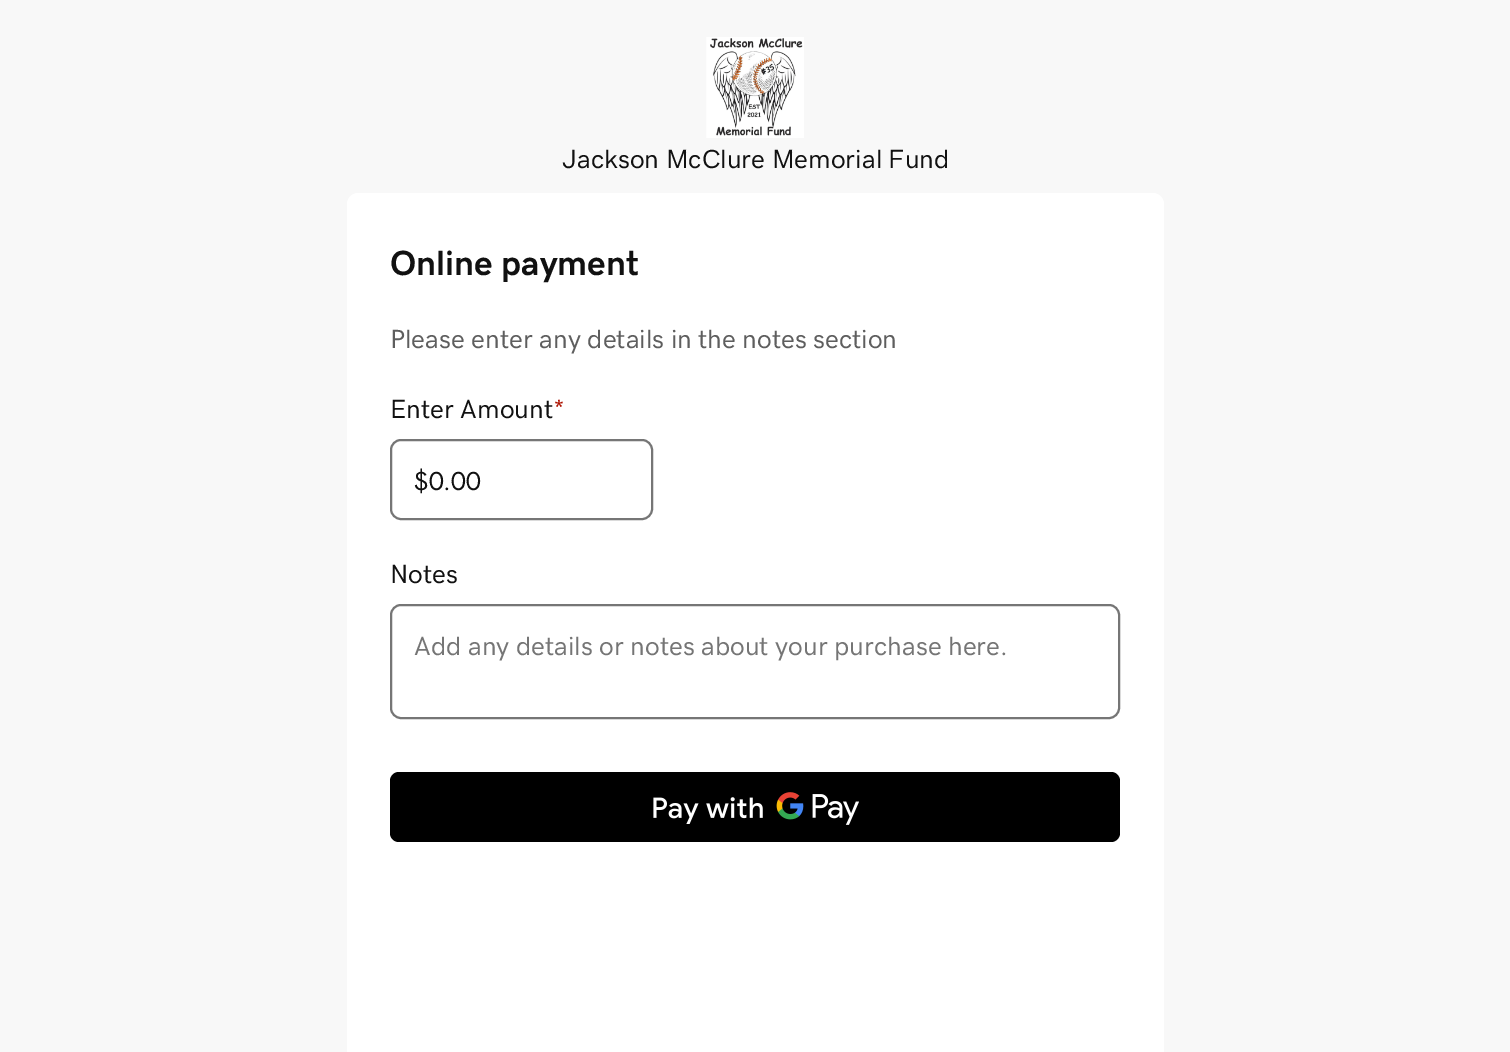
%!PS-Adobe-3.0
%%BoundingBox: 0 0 1510 1052
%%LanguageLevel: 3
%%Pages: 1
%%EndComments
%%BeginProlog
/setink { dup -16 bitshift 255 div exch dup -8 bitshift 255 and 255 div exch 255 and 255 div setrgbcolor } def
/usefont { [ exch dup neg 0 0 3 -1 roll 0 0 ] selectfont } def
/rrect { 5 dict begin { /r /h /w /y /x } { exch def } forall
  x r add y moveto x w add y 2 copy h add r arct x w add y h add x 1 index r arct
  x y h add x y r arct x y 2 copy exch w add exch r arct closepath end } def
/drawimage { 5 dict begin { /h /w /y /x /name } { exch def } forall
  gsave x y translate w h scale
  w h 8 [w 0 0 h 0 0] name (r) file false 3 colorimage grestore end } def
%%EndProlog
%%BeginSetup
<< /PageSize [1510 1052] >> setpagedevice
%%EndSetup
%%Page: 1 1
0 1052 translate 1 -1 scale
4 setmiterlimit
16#F8F8F8 setink
0 0 1510 1052 rectfill
(img1.raw) 706 37 98 101 drawimage
/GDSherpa-Medium 26.25 usefont
16#111111 setink
562 168 moveto (Jackson McClure Memorial Fund) show
16#FFFFFF setink
358 193 moveto 1153 193 lineto 1159 193 1164 198 1164 204 curveto 1164 763 lineto 347 763 lineto 347 204 lineto 347 198 352 193 358 193 curveto closepath fill
/GDSherpa-Bold 35 usefont
16#111111 setink
390 275 moveto (Online payment) show
/GDSherpa-Medium 26.25 usefont
16#5E5E5E setink
390 348 moveto (Please enter any details in the notes section) show
16#111111 setink
390 418 moveto (Enter Amount) show
16#AE1302 setink
553 418 moveto (*) show
16#767676 setink
2 setlinewidth
391 440 261 79 10 rrect stroke
16#111111 setink
414 490 moveto ($0.00) show
390 583 moveto (Notes) show
16#767676 setink
391 605 728 113 10 rrect stroke
16#757575 setink
414 655 moveto (Add any details or notes about your purchase here.) show
16#FFFFFF setink
347 763 817 289 rectfill
16#000000 setink
390 772 730 70 9 rrect fill
(img2.raw) 653 792 206 33 drawimage
showpage
%%EOF
